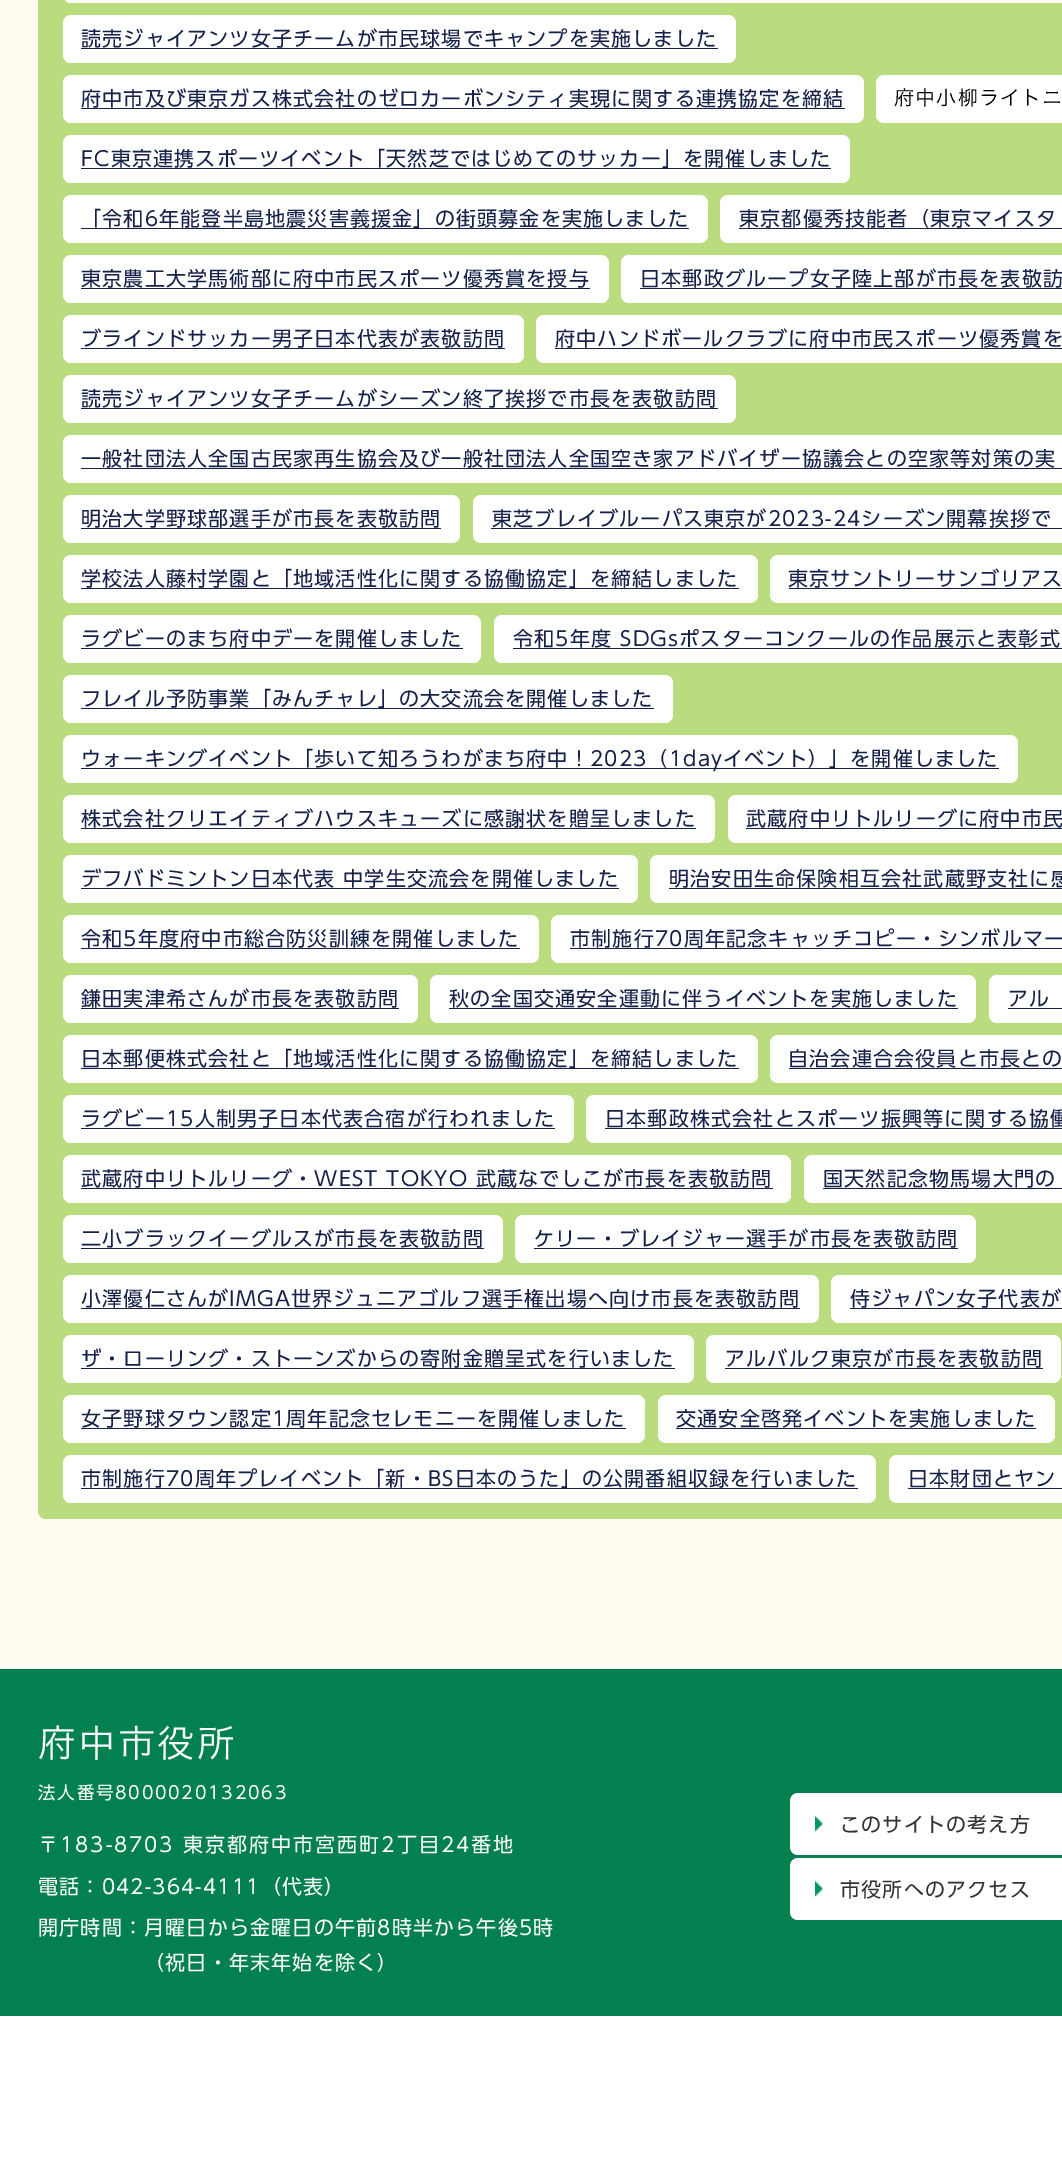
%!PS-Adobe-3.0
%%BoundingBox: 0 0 1062 2173
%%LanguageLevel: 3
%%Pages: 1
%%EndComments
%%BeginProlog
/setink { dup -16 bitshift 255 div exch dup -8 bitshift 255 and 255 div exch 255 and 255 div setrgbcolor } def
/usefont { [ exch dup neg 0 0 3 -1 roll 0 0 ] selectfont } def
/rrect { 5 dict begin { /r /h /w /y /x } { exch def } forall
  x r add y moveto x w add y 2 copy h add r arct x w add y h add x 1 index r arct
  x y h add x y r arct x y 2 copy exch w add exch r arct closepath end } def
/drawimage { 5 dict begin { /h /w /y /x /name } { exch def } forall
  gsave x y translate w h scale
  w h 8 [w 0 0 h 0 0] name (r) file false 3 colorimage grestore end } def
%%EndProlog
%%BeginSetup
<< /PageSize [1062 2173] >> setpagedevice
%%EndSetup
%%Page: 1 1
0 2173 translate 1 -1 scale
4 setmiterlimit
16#FFFFFF setink
0 0 1062 2173 rectfill
16#FFFCF2 setink
0 0 1062 1669 rectfill
16#BBDB7F setink
38 -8 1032 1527 8 rrect fill
16#FFFFFF setink
63 -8 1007 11 8 rrect fill
63 15 673 48 8 rrect fill
/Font-Regular 20 usefont
16#152148 setink
81 46 moveto 1.2 0 (読売ジャイアンツ女子チームが市民球場でキャンプを実施しました) ashow
81 48 637 1 rectfill
16#FFFFFF setink
63 75 801 48 8 rrect fill
16#152148 setink
81 106 moveto 1.2 0 (府中市及び東京ガス株式会社のゼロカーボンシティ実現に関する連携協定を締結) ashow
81 108 764 1 rectfill
16#FFFFFF setink
876 75 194 48 8 rrect fill
/Font-Light 20 usefont
16#000000 setink
894 105 moveto 1.2 0 (府中小柳ライトニ) ashow
16#FFFFFF setink
63 135 787 48 8 rrect fill
/Font-Regular 20 usefont
16#152148 setink
81 166 moveto 1.2 0 (FC東京連携スポーツイベント「天然芝ではじめてのサッカー」を開催しました) ashow
81 168 750 1 rectfill
16#FFFFFF setink
63 195 645 48 8 rrect fill
16#152148 setink
81 226 moveto 1.2 0 (「令和6年能登半島地震災害義援金」の街頭募金を実施しました) ashow
81 228 608 1 rectfill
16#FFFFFF setink
720 195 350 48 8 rrect fill
16#152148 setink
739 226 moveto 1.2 0 (東京都優秀技能者（東京マイスタ) ashow
739 228 323 1 rectfill
16#FFFFFF setink
63 255 546 48 8 rrect fill
16#152148 setink
81 286 moveto 1.2 0 (東京農工大学馬術部に府中市民スポーツ優秀賞を授与) ashow
81 288 509 1 rectfill
16#FFFFFF setink
621 255 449 48 8 rrect fill
16#152148 setink
640 286 moveto 1.2 0 (日本郵政グループ女子陸上部が市長を表敬訪) ashow
640 288 422 1 rectfill
16#FFFFFF setink
63 315 461 48 8 rrect fill
16#152148 setink
81 346 moveto 1.2 0 (ブラインドサッカー男子日本代表が表敬訪問) ashow
81 348 424 1 rectfill
16#FFFFFF setink
536 315 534 48 8 rrect fill
16#152148 setink
555 346 moveto 1.2 0 (府中ハンドボールクラブに府中市民スポーツ優秀賞を) ashow
555 348 507 1 rectfill
16#FFFFFF setink
63 375 673 48 8 rrect fill
16#152148 setink
81 406 moveto 1.2 0 (読売ジャイアンツ女子チームがシーズン終了挨拶で市長を表敬訪問) ashow
81 408 637 1 rectfill
16#FFFFFF setink
63 435 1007 48 8 rrect fill
16#152148 setink
81 466 moveto 1.2 0 (一般社団法人全国古民家再生協会及び一般社団法人全国空き家アドバイザー協議会との空家等対策の実) ashow
81 468 981 1 rectfill
16#FFFFFF setink
63 495 397 48 8 rrect fill
16#152148 setink
81 526 moveto 1.2 0 (明治大学野球部選手が市長を表敬訪問) ashow
81 528 360 1 rectfill
16#FFFFFF setink
473 495 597 48 8 rrect fill
16#152148 setink
492 526 moveto 1.2 0 (東芝ブレイブルーパス東京が2023-24シーズン開幕挨拶で) ashow
491 528 571 1 rectfill
16#FFFFFF setink
63 555 695 48 8 rrect fill
16#152148 setink
81 586 moveto 1.2 0 (学校法人藤村学園と「地域活性化に関する協働協定」を締結しました) ashow
81 588 658 1 rectfill
16#FFFFFF setink
770 555 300 48 8 rrect fill
16#152148 setink
788 586 moveto 1.2 0 (東京サントリーサンゴリアス) ashow
789 588 273 1 rectfill
16#FFFFFF setink
63 615 418 48 8 rrect fill
16#152148 setink
81 646 moveto 1.2 0 (ラグビーのまち府中デーを開催しました) ashow
81 648 382 1 rectfill
16#FFFFFF setink
494 615 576 48 8 rrect fill
16#152148 setink
513 646 moveto 1.2 0 (令和5年度 SDGsポスターコンクールの作品展示と表彰式) ashow
513 648 549 1 rectfill
16#FFFFFF setink
63 675 610 48 8 rrect fill
16#152148 setink
81 706 moveto 1.2 0 (フレイル予防事業「みんチャレ」の大交流会を開催しました) ashow
81 708 573 1 rectfill
16#FFFFFF setink
63 735 955 48 8 rrect fill
16#152148 setink
81 768 918 1 rectfill
81 766 moveto 1.2 0 (ウォーキングイベント「歩いて知ろうわがまち府中！2023（1dayイベント）」を開催しました) ashow
16#FFFFFF setink
63 795 652 48 8 rrect fill
16#152148 setink
81 826 moveto 1.2 0 (株式会社クリエイティブハウスキューズに感謝状を贈呈しました) ashow
81 828 615 1 rectfill
16#FFFFFF setink
728 795 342 48 8 rrect fill
16#152148 setink
746 826 moveto 1.2 0 (武蔵府中リトルリーグに府中市民) ashow
746 828 316 1 rectfill
16#FFFFFF setink
63 855 575 48 8 rrect fill
16#152148 setink
81 886 moveto 1.2 0 (デフバドミントン日本代表 中学生交流会を開催しました) ashow
81 888 538 1 rectfill
16#FFFFFF setink
650 855 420 48 8 rrect fill
16#152148 setink
669 886 moveto 1.2 0 (明治安田生命保険相互会社武蔵野支社に感) ashow
669 888 393 1 rectfill
16#FFFFFF setink
63 915 476 48 8 rrect fill
16#152148 setink
81 946 moveto 1.2 0 (令和5年度府中市総合防災訓練を開催しました) ashow
81 948 439 1 rectfill
16#FFFFFF setink
551 915 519 48 8 rrect fill
16#152148 setink
570 946 moveto 1.2 0 (市制施行70周年記念キャッチコピー・シンボルマー) ashow
570 948 492 1 rectfill
16#FFFFFF setink
63 975 355 48 8 rrect fill
16#152148 setink
81 1006 moveto 1.2 0 (鎌田実津希さんが市長を表敬訪問) ashow
81 1008 318 1 rectfill
16#FFFFFF setink
430 975 546 48 8 rrect fill
16#152148 setink
449 1006 moveto 1.2 0 (秋の全国交通安全運動に伴うイベントを実施しました) ashow
449 1008 509 1 rectfill
16#FFFFFF setink
989 975 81 48 8 rrect fill
16#152148 setink
1008 1006 moveto 1.2 0 (アル) ashow
1008 1008 54 1 rectfill
16#FFFFFF setink
63 1035 695 48 8 rrect fill
16#152148 setink
81 1066 moveto 1.2 0 (日本郵便株式会社と「地域活性化に関する協働協定」を締結しました) ashow
81 1068 658 1 rectfill
16#FFFFFF setink
770 1035 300 48 8 rrect fill
16#152148 setink
788 1066 moveto 1.2 0 (自治会連合会役員と市長との) ashow
789 1068 273 1 rectfill
16#FFFFFF setink
63 1095 511 48 8 rrect fill
16#152148 setink
81 1126 moveto 1.2 0 (ラグビー15人制男子日本代表合宿が行われました) ashow
81 1128 474 1 rectfill
16#FFFFFF setink
586 1095 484 48 8 rrect fill
16#152148 setink
605 1126 moveto 1.2 0 (日本郵政株式会社とスポーツ振興等に関する協働) ashow
605 1128 457 1 rectfill
16#FFFFFF setink
63 1155 728 48 8 rrect fill
16#152148 setink
81 1186 moveto 1.2 0 (武蔵府中リトルリーグ・WEST TOKYO 武蔵なでしこが市長を表敬訪問) ashow
81 1188 692 1 rectfill
16#FFFFFF setink
804 1155 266 48 8 rrect fill
16#152148 setink
823 1186 moveto 1.2 0 (国天然記念物馬場大門の) ashow
823 1188 239 1 rectfill
16#FFFFFF setink
63 1215 440 48 8 rrect fill
16#152148 setink
81 1246 moveto 1.2 0 (二小ブラックイーグルスが市長を表敬訪問) ashow
81 1248 403 1 rectfill
16#FFFFFF setink
515 1215 461 48 8 rrect fill
16#152148 setink
534 1246 moveto 1.2 0 (ケリー・ブレイジャー選手が市長を表敬訪問) ashow
534 1248 424 1 rectfill
16#FFFFFF setink
63 1275 756 48 8 rrect fill
16#152148 setink
81 1306 moveto 1.2 0 (小澤優仁さんがIMGA世界ジュニアゴルフ選手権出場へ向け市長を表敬訪問) ashow
81 1308 719 1 rectfill
16#FFFFFF setink
831 1275 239 48 8 rrect fill
16#152148 setink
850 1306 moveto 1.2 0 (侍ジャパン女子代表が) ashow
850 1308 212 1 rectfill
16#FFFFFF setink
63 1335 631 48 8 rrect fill
16#152148 setink
81 1366 moveto 1.2 0 (ザ・ローリング・ストーンズからの寄附金贈呈式を行いました) ashow
81 1368 594 1 rectfill
16#FFFFFF setink
706 1335 355 48 8 rrect fill
16#152148 setink
725 1366 moveto 1.2 0 (アルバルク東京が市長を表敬訪問) ashow
725 1368 318 1 rectfill
16#FFFFFF setink
63 1395 582 48 8 rrect fill
16#152148 setink
81 1426 moveto 1.2 0 (女子野球タウン認定1周年記念セレモニーを開催しました) ashow
81 1428 545 1 rectfill
16#FFFFFF setink
658 1395 397 48 8 rrect fill
16#152148 setink
676 1426 moveto 1.2 0 (交通安全啓発イベントを実施しました) ashow
676 1428 360 1 rectfill
16#FFFFFF setink
63 1455 813 48 8 rrect fill
16#152148 setink
81 1486 moveto 1.2 0 (市制施行70周年プレイベント「新・BS日本のうた」の公開番組収録を行いました) ashow
81 1488 777 1 rectfill
16#FFFFFF setink
889 1455 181 48 8 rrect fill
16#152148 setink
908 1486 moveto 1.2 0 (日本財団とヤン) ashow
908 1488 154 1 rectfill
16#038050 setink
0 1669 1062 347 rectfill
/Font-Light 37.5 usefont
16#FFFFFF setink
38 1757 moveto 2.25 0 (府中市役所) ashow
/Font-Regular 17.5 usefont
38 1799 moveto 1.75 0 (法人番号8000020132063) ashow
/Font-Regular 20 usefont
38 1852 moveto 2 0 (〒183-8703 東京都府中市宮西町2丁目24番地) ashow
38 1894 moveto 1.2 0 (電話：042-364-4111（代表）) ashow
38 1935 moveto 1.2 0 (開庁時間：月曜日から金曜日の午前8時半から午後5時) ashow
144 1970 moveto 1.2 0 (（祝日・年末年始を除く）) ashow
790 1793 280 62 8 rrect fill
(img1.raw) 815 1815 8 17 drawimage
16#333333 setink
840 1832 moveto 1.2 0 (このサイトの考え方) ashow
16#FFFFFF setink
790 1858 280 62 8 rrect fill
(img1.raw) 815 1880 8 17 drawimage
16#333333 setink
840 1897 moveto 1.2 0 (市役所へのアクセス) ashow
showpage
%%EOF
